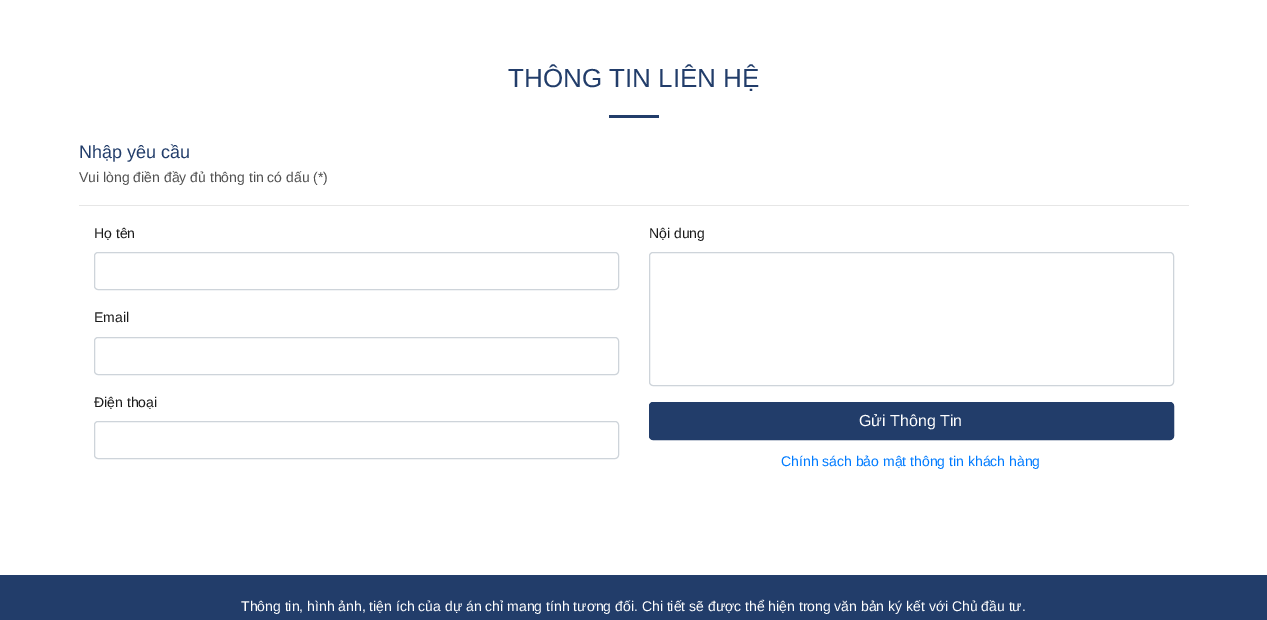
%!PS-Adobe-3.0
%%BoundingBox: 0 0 1267 620
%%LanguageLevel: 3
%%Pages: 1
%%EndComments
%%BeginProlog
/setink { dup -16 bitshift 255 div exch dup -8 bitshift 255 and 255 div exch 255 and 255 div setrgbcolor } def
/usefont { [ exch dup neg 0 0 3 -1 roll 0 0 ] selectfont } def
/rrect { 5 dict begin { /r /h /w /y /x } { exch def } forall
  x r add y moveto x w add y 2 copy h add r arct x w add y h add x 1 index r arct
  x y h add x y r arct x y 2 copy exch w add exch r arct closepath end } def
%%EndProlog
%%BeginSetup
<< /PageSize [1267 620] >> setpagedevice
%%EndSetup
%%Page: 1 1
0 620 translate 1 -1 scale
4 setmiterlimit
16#FFFFFF setink
0 0 1267 620 rectfill
/LiberationSans-Regular 26 usefont
16#223D6A setink
508 87 moveto (THÔNG TIN LIÊN HỆ) show
609 115 50 3 rectfill
/LiberationSans-Regular 18 usefont
79 158 moveto (Nhập yêu cầu) show
/LiberationSans-Regular 14 usefont
16#515151 setink
79 182 moveto (Vui lòng điền đầy đủ thông tin có dấu \(*\)) show
16#E6E6E6 setink
79 205 1110 1 rectfill
16#1B1B1B setink
94 238 moveto (Họ tên) show
16#CED4DA setink
94.5 252.5 524 37 3.5 rrect stroke
16#1B1B1B setink
94 322 moveto (Email) show
16#CED4DA setink
94.5 337.5 524 37 3.5 rrect stroke
16#1B1B1B setink
94 407 moveto (Điện thoại) show
16#CED4DA setink
94.5 421.5 524 37 3.5 rrect stroke
16#1B1B1B setink
649 238 moveto (Nội dung) show
16#CED4DA setink
649.5 252.5 524 133 3.5 rrect stroke
16#223D6A setink
649.5 402.5 524 37 3.5 rrect gsave fill grestore
stroke
/LiberationSans-Regular 16 usefont
16#FFFFFF setink
859 426 moveto (Gửi Thông Tin) show
/LiberationSans-Regular 14 usefont
16#007BFF setink
781 466 moveto (Chính sách bảo mật thông tin khách hàng) show
16#223D6A setink
0 575 1267 45 rectfill
16#FFFFFF setink
241 611 moveto (Thông tin, hình ảnh, tiện ích của dự án chỉ mang tính tương đối. Chi tiết sẽ được thể hiện trong văn bản ký kết với Chủ đầu tư.) show
showpage
%%EOF
